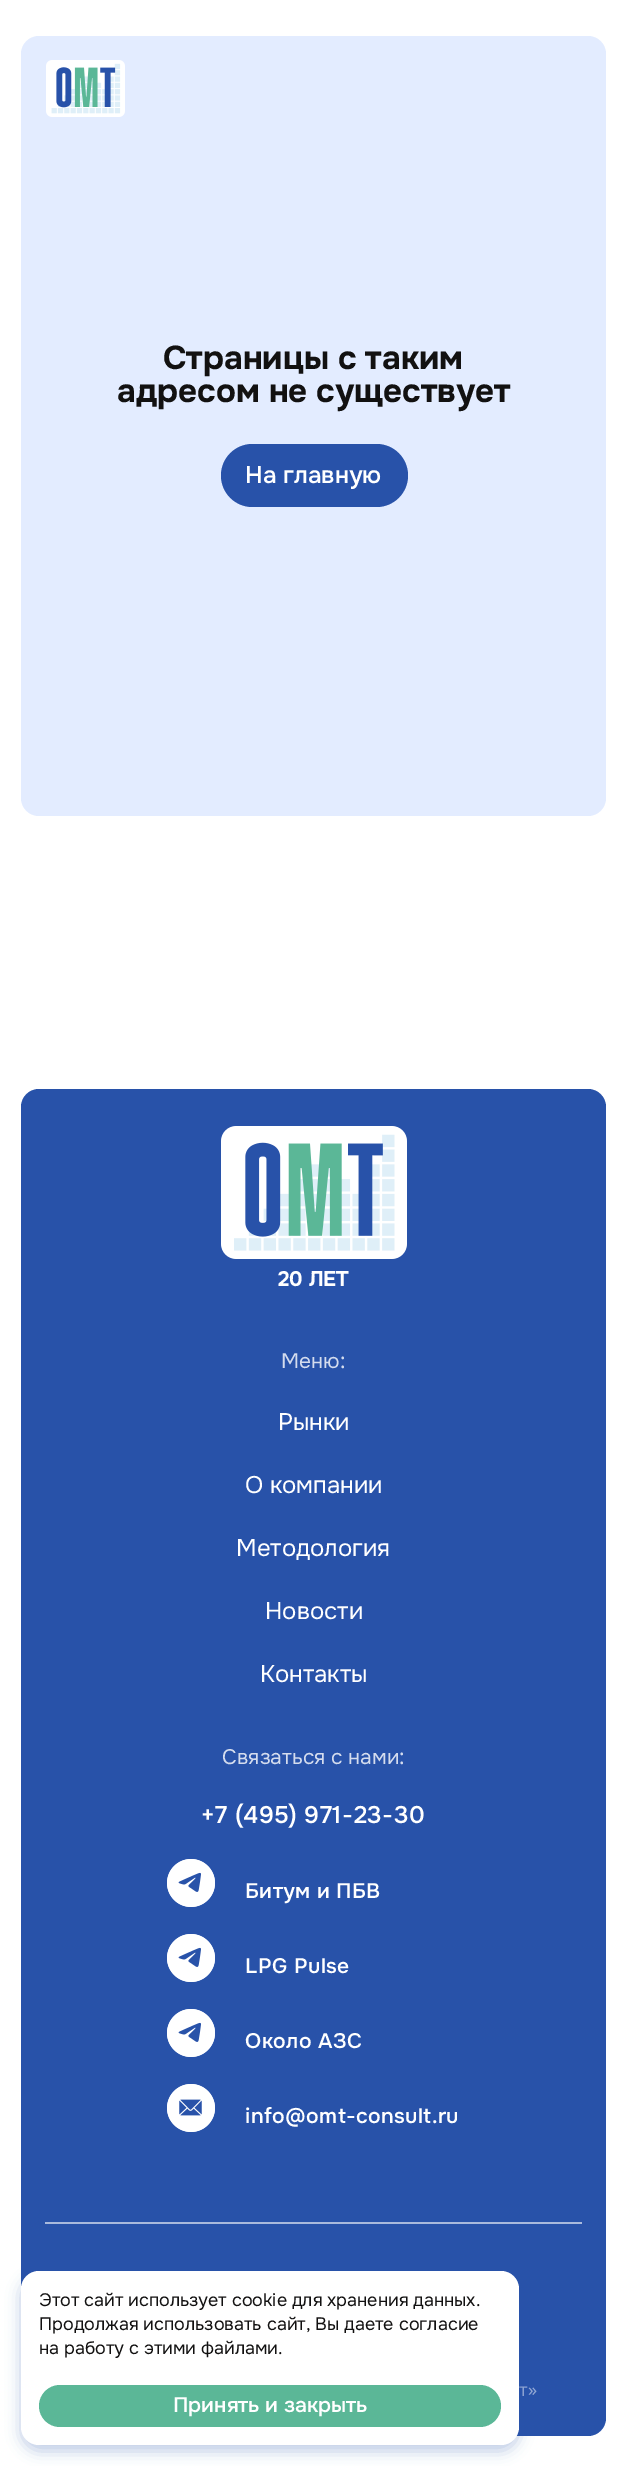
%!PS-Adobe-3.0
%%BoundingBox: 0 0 626 2466
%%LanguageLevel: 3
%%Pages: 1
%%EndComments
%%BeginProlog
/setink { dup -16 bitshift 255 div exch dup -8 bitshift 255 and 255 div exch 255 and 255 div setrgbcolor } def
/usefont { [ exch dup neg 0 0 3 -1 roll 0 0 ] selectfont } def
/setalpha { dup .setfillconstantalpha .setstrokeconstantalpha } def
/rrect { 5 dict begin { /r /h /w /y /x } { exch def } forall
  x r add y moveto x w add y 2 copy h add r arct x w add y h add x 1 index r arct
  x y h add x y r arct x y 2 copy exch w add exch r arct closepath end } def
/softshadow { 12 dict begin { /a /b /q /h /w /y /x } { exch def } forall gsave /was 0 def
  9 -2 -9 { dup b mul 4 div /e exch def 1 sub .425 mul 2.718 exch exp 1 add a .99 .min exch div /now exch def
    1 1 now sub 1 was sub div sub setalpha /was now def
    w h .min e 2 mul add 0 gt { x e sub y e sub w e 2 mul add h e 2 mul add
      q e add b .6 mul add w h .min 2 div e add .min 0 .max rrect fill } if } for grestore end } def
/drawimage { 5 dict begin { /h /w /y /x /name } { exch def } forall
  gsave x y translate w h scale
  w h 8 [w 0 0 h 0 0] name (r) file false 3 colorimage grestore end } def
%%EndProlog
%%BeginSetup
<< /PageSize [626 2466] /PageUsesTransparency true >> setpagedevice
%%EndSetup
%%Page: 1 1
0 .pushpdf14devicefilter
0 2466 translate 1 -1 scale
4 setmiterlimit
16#FFFFFF setink
0 0 626 2466 rectfill
16#E3ECFF setink
21 36 585 780 18 rrect fill
(img1.raw) 46 60 79 57 drawimage
/Onest-Bold 33 usefont
16#121111 setink
163 369 moveto (Страницы с таким) show
117 402 moveto (адресом не существует) show
16#2852A9 setink
221 444 187 63 31.5 rrect fill
/Onest-Medium 24 usefont
16#FFFFFF setink
245 483 moveto (На главную) show
16#2852A9 setink
21 1089 585 1347 18 rrect fill
16#A9BADD setink
45 2222 537 2 rectfill
(img2.raw) 221 1126 186 133 drawimage
/Onest-Bold 21 usefont
16#FFFFFF setink
278 1286 moveto (20 ЛЕТ) show
/Onest-Regular 21 usefont
16#D4DCEE setink
281 1368 moveto (Меню) show
/NotoSans-Regular 21 usefont
340 1368 moveto (:) show
/Onest-Regular 24 usefont
16#FFFFFF setink
[
    [(Рынки) 278 1430]
    [(О компании) 245 1493]
    [(Методология) 236 1556]
    [(Новости) 265 1619]
    [(Контакты) 260 1682]
] { aload pop moveto show } forall
/Onest-Regular 21 usefont
16#D4DCEE setink
222 1764 moveto (Связаться с нами) show
/NotoSans-Regular 21 usefont
399 1764 moveto (:) show
/Onest-Medium 24 usefont
16#FFFFFF setink
201 1823 moveto 0.5 0 (+7 \(495\) 971-23-30) ashow
(img3.raw) 167 1859 48 48 drawimage
/Onest-Medium 21 usefont
245 1898 moveto 0.4 0 (Битум и ПБВ) ashow
(img3.raw) 167 1934 48 48 drawimage
245 1973 moveto 0.4 0 (LPG Pulse) ashow
(img3.raw) 167 2009 48 48 drawimage
245 2048 moveto 0.4 0 (Около АЗС) ashow
(img4.raw) 167 2084 48 48 drawimage
245 2123 moveto 0.4 0 (info@omt-consult.ru) ashow
/Onest-Regular 18 usefont
16#94A9D4 setink
519 2396 moveto (т) show
/NotoSans-Regular 18 usefont
528 2396 moveto (») show
16#2852A9 setink
21 2277 498 174 18 7.5 0.3 softshadow
16#FFFFFF setink
21 2271 498 174 18 rrect fill
/Onest-Regular 18 usefont
16#121111 setink
[
    [(Этот сайт использует cookie для хранения данных.) 39 2306]
    [(Продолжая использовать сайт, Вы даете согласие) 39 2330]
    [(на работу с этими файлами.) 39 2354]
] { aload pop moveto show } forall
16#5BB797 setink
39 2385 462 42 21 rrect fill
/Onest-Medium 21 usefont
16#FFFFFF setink
173 2412 moveto (Принять и закрыть) show
.poppdf14devicefilter showpage
%%EOF
